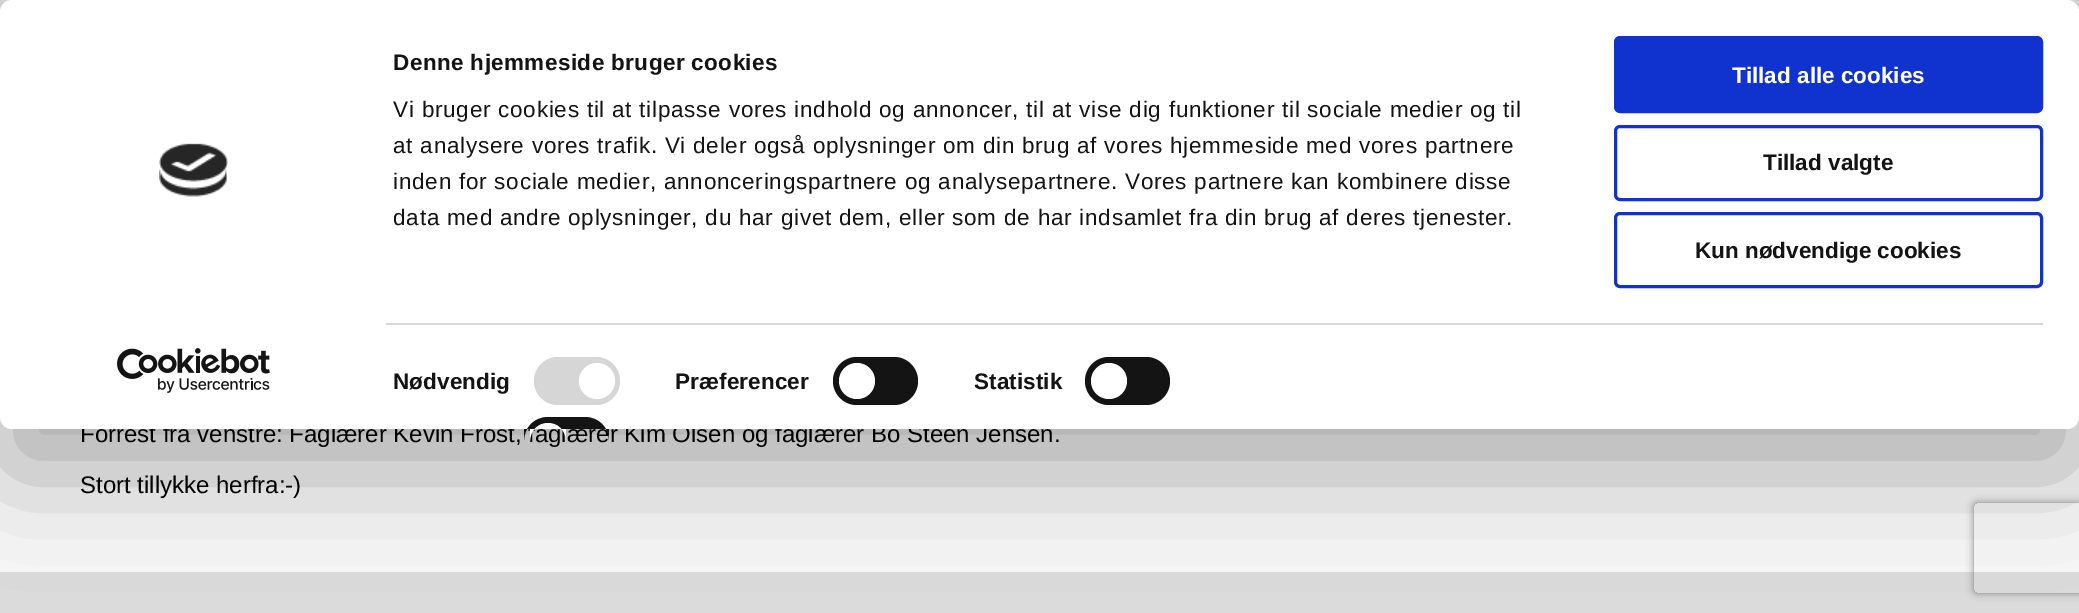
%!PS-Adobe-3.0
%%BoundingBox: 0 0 2079 613
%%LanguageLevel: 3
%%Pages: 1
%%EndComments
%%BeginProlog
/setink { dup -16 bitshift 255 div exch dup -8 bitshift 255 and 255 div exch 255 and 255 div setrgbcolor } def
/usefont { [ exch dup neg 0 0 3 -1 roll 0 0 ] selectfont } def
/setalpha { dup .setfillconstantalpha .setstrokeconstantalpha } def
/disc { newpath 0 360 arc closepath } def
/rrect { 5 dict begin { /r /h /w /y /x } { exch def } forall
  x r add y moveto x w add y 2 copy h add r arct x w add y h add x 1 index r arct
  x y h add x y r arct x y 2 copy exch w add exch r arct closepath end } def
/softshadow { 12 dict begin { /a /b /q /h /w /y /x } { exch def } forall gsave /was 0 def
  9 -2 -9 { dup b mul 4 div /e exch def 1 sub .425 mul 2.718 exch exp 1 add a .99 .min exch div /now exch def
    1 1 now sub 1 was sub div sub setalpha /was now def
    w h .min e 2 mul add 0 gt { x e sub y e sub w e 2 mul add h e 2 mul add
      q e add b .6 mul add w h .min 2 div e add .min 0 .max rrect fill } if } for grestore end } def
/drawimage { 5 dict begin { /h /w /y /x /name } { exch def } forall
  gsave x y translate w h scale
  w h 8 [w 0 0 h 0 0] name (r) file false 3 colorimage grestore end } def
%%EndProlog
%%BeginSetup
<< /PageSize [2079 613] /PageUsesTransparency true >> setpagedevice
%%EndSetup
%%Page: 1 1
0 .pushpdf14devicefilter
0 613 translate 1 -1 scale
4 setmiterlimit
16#F7F7F7 setink
0 0 2079 613 rectfill
16#DBDBDB setink
0 0 2079 12 rectfill
0 572 2079 41 rectfill
16#000000 setink
0 45 2079 429 12 52.5 0.3 softshadow
/LiberationSans-Regular 24 usefont
80 442 moveto (Forrest fra venstre: Faglærer Kevin Frost, faglærer Kim Olsen og faglærer Bo Steen Jensen.) show
16#FFFFFF setink
0 0 2079 429 12 rrect fill
(img1.raw) 159 143 69 54 drawimage
(img2.raw) 117 348 153 45 drawimage
/LiberationSans-Bold 22.5 usefont
16#141414 setink
393 70 moveto 0.4 0 (Denne hjemmeside bruger cookies) ashow
/LiberationSans-Regular 22.5 usefont
393 117 moveto 0.75 0 (Vi bruger cookies til at tilpasse vores indhold og annoncer, til at vise dig funktioner til sociale medier og til) ashow
393 153 moveto 0.75 0 (at analysere vores trafik. Vi deler også oplysninger om din brug af vores hjemmeside med vores partnere) ashow
393 189 moveto 0.75 0 (inden for sociale medier, annonceringspartnere og analysepartnere. Vores partnere kan kombinere disse) ashow
393 225 moveto 0.75 0 (data med andre oplysninger, du har givet dem, eller som de har indsamlet fra din brug af deres tjenester.) ashow
16#D6D6D6 setink
386 323 1657 2 rectfill
/LiberationSans-Bold 22.5 usefont
16#141414 setink
393 389 moveto 0.1 0 (Nødvendig) ashow
16#D6D6D6 setink
534 357 86 48 24 rrect fill
16#FFFFFF setink
597 381 18 disc fill
16#141414 setink
675 389 moveto 0.1 0 (Præferencer) ashow
833 357 85 48 24 rrect fill
16#FFFFFF setink
857 381 18 disc fill
16#141414 setink
974 389 moveto 0.1 0 (Statistik) ashow
1085 357 85 48 24 rrect fill
16#FFFFFF setink
1109 381 18 disc fill
16#141414 setink
548 417 moveto 585 417 lineto 598.5 417 609 427.5 609 441 curveto 609 429 lineto 524 429 lineto 524 441 lineto 524 427.5 534.5 417 548 417 curveto closepath fill
16#FFFFFF setink
548 423 moveto 558 423 566 431 566 441 curveto 566 429 lineto 530 429 lineto 530 441 lineto 530 431 538 423 548 423 curveto closepath fill
16#1032CF setink
1615.5 37.5 426 74 4.5 rrect gsave fill grestore
3 setlinewidth
stroke
16#FFFFFF setink
1732 83 moveto (Tillad alle cookies) show
16#1032CF setink
1615.5 126.5 426 73 4.5 rrect stroke
16#141414 setink
1763 170 moveto (Tillad valgte) show
16#1032CF setink
1615.5 213.5 426 73 4.5 rrect stroke
16#141414 setink
1695 258 moveto (Kun nødvendige cookies) show
/LiberationSans-Regular 24 usefont
16#000000 setink
80 493 moveto (Stort tillykke herfra:-\)) show
gsave
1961 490 moveto 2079 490 lineto 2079 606 lineto 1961 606 lineto closepath 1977 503 moveto 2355 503 lineto 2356.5 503 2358 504.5 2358 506 curveto 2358 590 lineto 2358 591.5 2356.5 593 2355 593 curveto 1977 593 lineto 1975.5 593 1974 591.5 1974 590 curveto 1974 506 lineto 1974 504.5 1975.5 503 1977 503 curveto closepath eoclip newpath
16#808080 setink
1974 503 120 90 3 4 1 softshadow
grestore
.poppdf14devicefilter showpage
%%EOF
